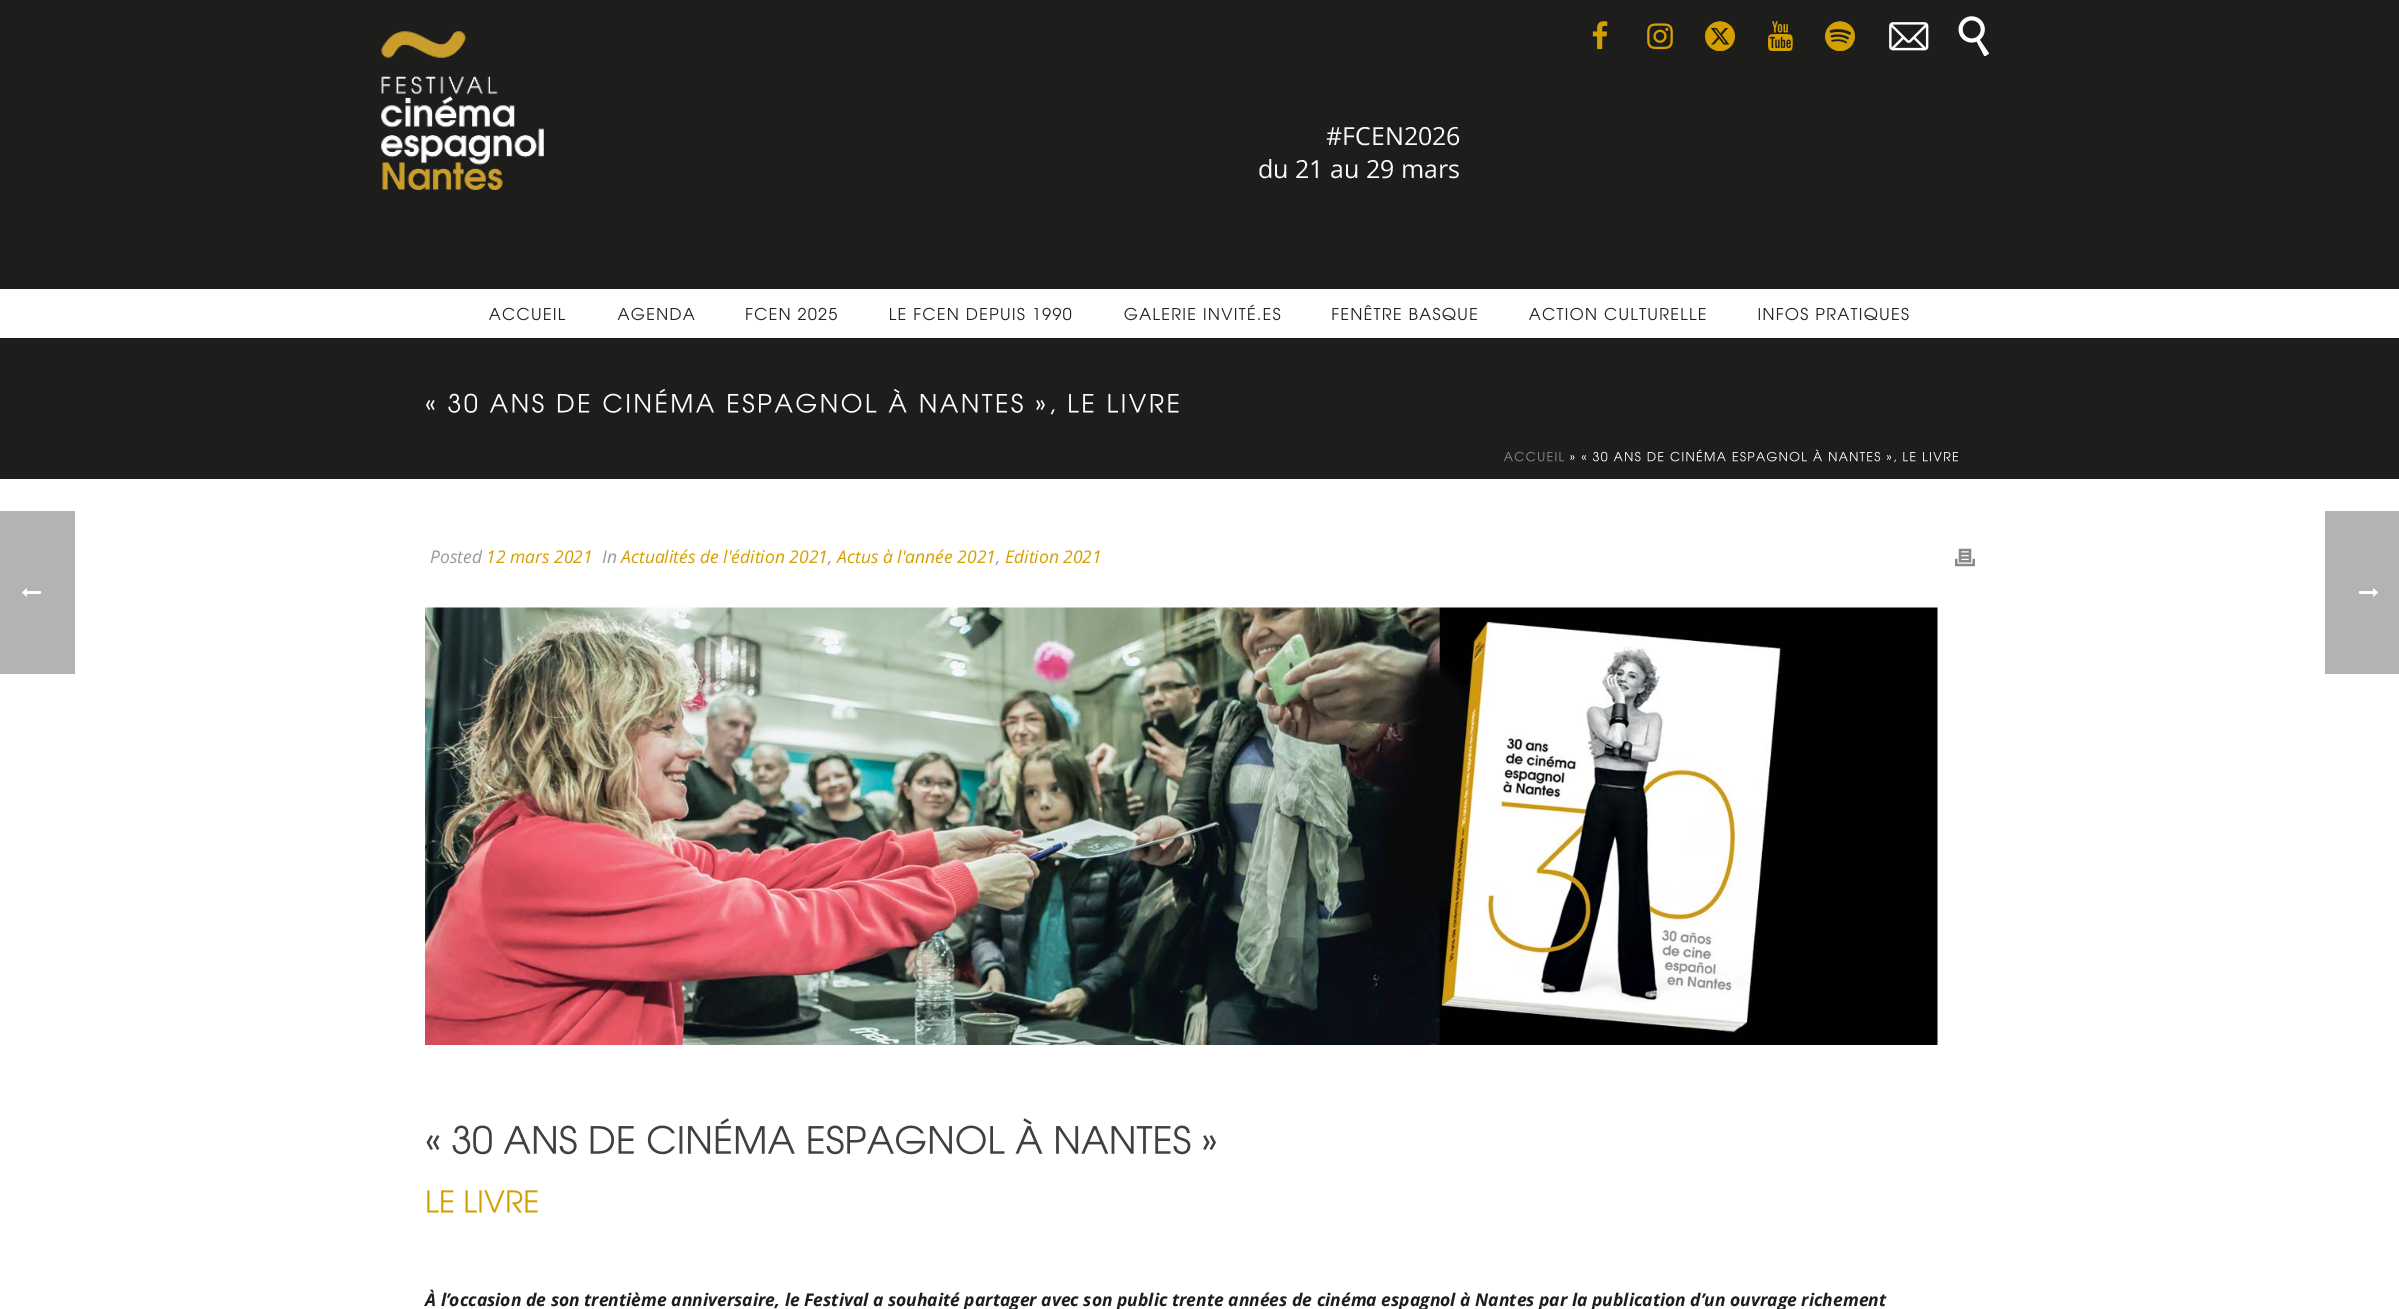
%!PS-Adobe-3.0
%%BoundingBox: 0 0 2399 1309
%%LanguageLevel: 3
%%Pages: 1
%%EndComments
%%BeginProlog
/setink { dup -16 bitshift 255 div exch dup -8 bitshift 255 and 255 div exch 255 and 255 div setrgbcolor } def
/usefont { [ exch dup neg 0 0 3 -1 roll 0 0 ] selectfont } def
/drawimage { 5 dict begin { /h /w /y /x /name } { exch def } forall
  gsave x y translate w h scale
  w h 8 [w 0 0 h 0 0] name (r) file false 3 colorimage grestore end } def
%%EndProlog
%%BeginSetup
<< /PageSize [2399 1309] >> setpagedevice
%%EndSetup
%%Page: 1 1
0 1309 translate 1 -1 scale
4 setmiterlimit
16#FFFFFF setink
0 0 2399 1309 rectfill
16#B3B3B3 setink
0 511 75 163 rectfill
(img1.raw) 22 588 19 9 drawimage
16#1D1D1B setink
0 0 2399 289 rectfill
(img2.raw) 381 31 163 159 drawimage
/OpenSans-Regular 25 usefont
16#FBF9F9 setink
1326 145 moveto (#FCEN2026) show
1258 178 moveto (du 21 au 29 mars) show
(img3.raw) 1592 21 16 29 drawimage
(img4.raw) 1647 23 26 27 drawimage
(img5.raw) 1705 21 30 30 drawimage
(img6.raw) 1768 21 25 30 drawimage
(img7.raw) 1825 21 30 30 drawimage
(img8.raw) 1889 22 40 29 drawimage
(img9.raw) 1958 16 31 40 drawimage
(img10.raw) 489 307 77 14 drawimage
(img11.raw) 617 307 78 14 drawimage
(img12.raw) 746 307 91 14 drawimage
(img13.raw) 890 307 182 14 drawimage
(img14.raw) 1124 304 157 17 drawimage
(img15.raw) 1332 305 145 16 drawimage
(img16.raw) 1529 307 177 14 drawimage
(img17.raw) 1758 307 151 14 drawimage
16#1D1D1B setink
0 338 2399 141 rectfill
(img18.raw) 426 388 753 27 drawimage
(img19.raw) 1504 451 61 11 drawimage
(img20.raw) 1570 455 5 5 drawimage
(img21.raw) 1581 449 377 14 drawimage
/OpenSans-Italic 17.5 usefont
16#999999 setink
430 563 moveto (Posted) show
16#D49F00 setink
486 563 moveto (12 mars 2021) show
16#999999 setink
602 563 moveto (In) show
16#D49F00 setink
621 563 moveto (Actualités de l'édition 2021) show
16#999999 setink
828 563 moveto (,) show
16#D49F00 setink
837 563 moveto (Actus à l'année 2021) show
16#999999 setink
996 563 moveto (,) show
16#D49F00 setink
1005 563 moveto (Edition 2021) show
(img22.raw) 1955 548 20 19 drawimage
(img23.raw) 425 607 1513 438 drawimage
(img24.raw) 426 1118 790 37 drawimage
(img25.raw) 427 1190 111 23 drawimage
/OpenSans-BoldItalic 17.5 usefont
16#1D1D1B setink
425 1306 moveto (À l’occasion de son trentième anniversaire, le Festival a souhaité partager avec son public trente années de cinéma espagnol à Nantes par la publication d’un ouvrage richement) show
16#B3B3B3 setink
2325 511 74 163 rectfill
(img26.raw) 2359 588 19 9 drawimage
showpage
%%EOF
